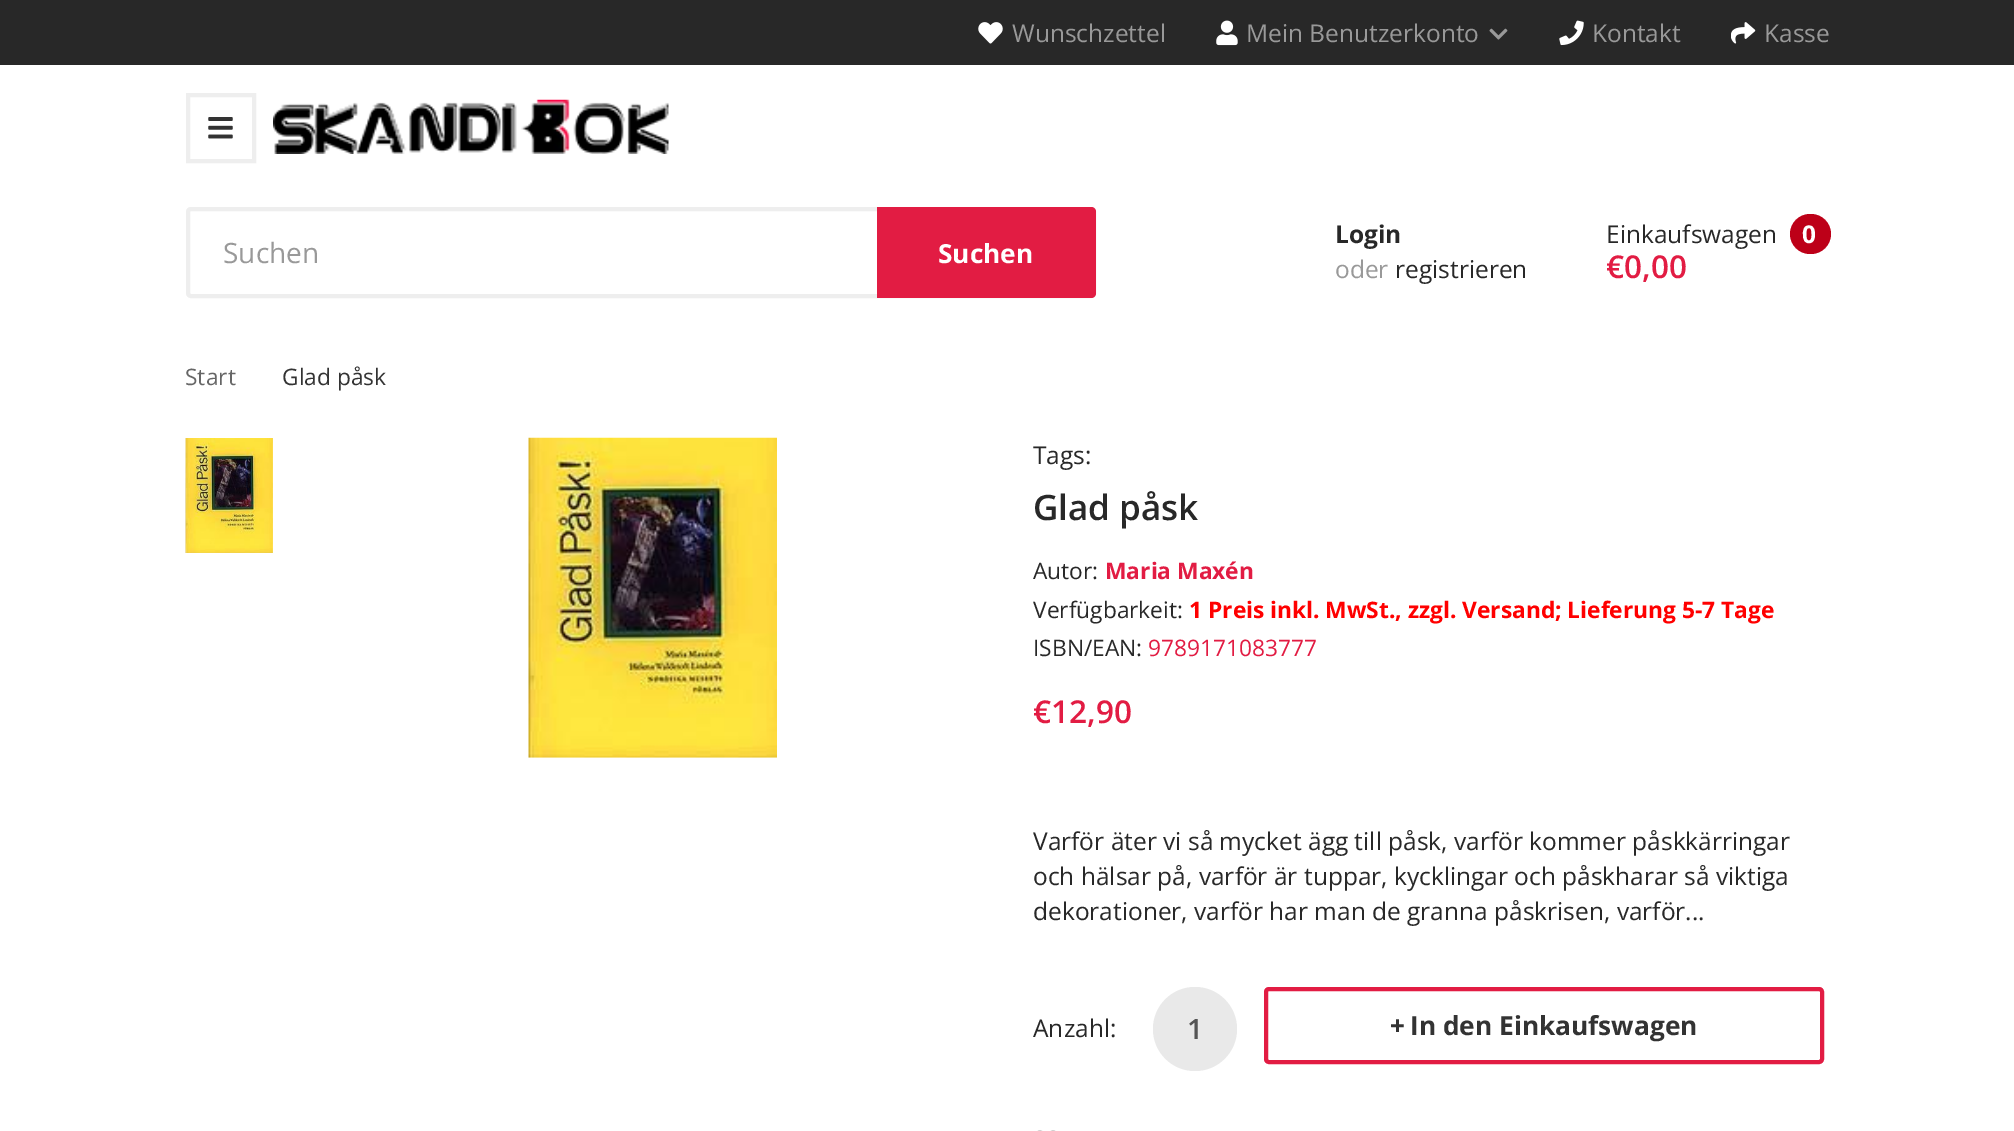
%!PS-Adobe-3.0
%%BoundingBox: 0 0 2014 1131
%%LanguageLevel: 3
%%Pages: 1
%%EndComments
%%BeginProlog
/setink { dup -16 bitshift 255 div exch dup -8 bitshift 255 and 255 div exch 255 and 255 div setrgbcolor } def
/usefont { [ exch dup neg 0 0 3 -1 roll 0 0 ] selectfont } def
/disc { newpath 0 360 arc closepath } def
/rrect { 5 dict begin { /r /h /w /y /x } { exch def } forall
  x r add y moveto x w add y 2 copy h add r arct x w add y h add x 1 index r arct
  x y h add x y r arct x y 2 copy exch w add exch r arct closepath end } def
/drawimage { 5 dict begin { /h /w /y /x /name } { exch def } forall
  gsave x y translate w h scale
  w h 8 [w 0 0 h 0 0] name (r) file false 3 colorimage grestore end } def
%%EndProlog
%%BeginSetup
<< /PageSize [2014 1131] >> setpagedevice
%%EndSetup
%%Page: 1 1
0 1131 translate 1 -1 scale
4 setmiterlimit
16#FFFFFF setink
0 0 2014 1131 rectfill
16#282828 setink
0 0 2014 65 rectfill
(img1.raw) 978 22 25 22 drawimage
/OpenSans-Regular 24.5 usefont
16#999999 setink
1012 42 moveto (Wunschzettel) show
(img2.raw) 1216 20 22 26 drawimage
1246 42 moveto (Mein Benutzerkonto) show
(img3.raw) 1489 28 19 12 drawimage
(img4.raw) 1559 20 25 26 drawimage
1592 42 moveto (Kontakt) show
(img5.raw) 1731 22 25 22 drawimage
1764 42 moveto (Kasse) show
16#EEEEEE setink
4 setlinewidth
188 95 66 66 rectstroke
(img6.raw) 208 117 25 22 drawimage
(img7.raw) 273 99 396 55 drawimage
188 209 906 87 3 rrect stroke
/OpenSans-Regular 28 usefont
16#999999 setink
223 263 moveto (Suchen) show
16#E21C43 setink
877 207 moveto 1091 207 lineto 1094 207 1096 209 1096 212 curveto 1096 293 lineto 1096 296 1094 298 1091 298 curveto 877 298 lineto closepath fill
/OpenSans-Bold 26.25 usefont
16#FFFFFF setink
938 263 moveto (Suchen) show
/OpenSans-Bold 24.5 usefont
16#282828 setink
1335 243 moveto (Login) show
/OpenSans-Regular 24.5 usefont
16#999999 setink
1335 278 moveto (oder) show
16#282828 setink
1395 278 moveto (registrieren) show
1606 243 moveto (Einkaufswagen) show
16#BD0018 setink
1790 214 41 40 20 rrect fill
/OpenSans-Bold 24.5 usefont
16#FFFFFF setink
1802 243 moveto (0) show
/OpenSans-SemiBold 31.5 usefont
16#E21C43 setink
1606 278 moveto (€0,00) show
/OpenSans-Regular 22.75 usefont
16#666666 setink
185 385 moveto (Start) show
16#333333 setink
282 385 moveto (Glad påsk) show
(img8.raw) 185 438 88 115 drawimage
(img9.raw) 528 437 249 321 drawimage
/OpenSans-Regular 24.5 usefont
16#282828 setink
1033 464 moveto (Tags:) show
/OpenSans-SemiBold 35 usefont
1033 520 moveto (Glad påsk) show
/OpenSans-Regular 22.75 usefont
1033 579 moveto (Autor:) show
/OpenSans-Bold 22.75 usefont
16#E21C43 setink
1105 579 moveto (Maria Maxén) show
/OpenSans-Regular 22.75 usefont
16#282828 setink
1033 618 moveto (Verfügbarkeit:) show
/OpenSans-Bold 22.75 usefont
16#FF0000 setink
1189 618 moveto (1 Preis inkl. MwSt., zzgl. Versand; Lieferung 5-7 Tage) show
/OpenSans-Regular 22.75 usefont
16#282828 setink
1033 656 moveto (ISBN/EAN:) show
16#E21C43 setink
1148 656 moveto (9789171083777) show
/OpenSans-SemiBold 31.5 usefont
1033 723 moveto (€12,90) show
/OpenSans-Regular 24.5 usefont
16#282828 setink
[
    [(Varför äter vi så mycket ägg till påsk, varför kommer påskkärringar) 1033 850]
    [(och hälsar på, varför är tuppar, kycklingar och påskharar så viktiga) 1033 885]
    [(dekorationer, varför har man de granna påskrisen, varför...) 1033 920]
    [(Anzahl:) 1033 1037]
] { aload pop moveto show } forall
16#E9E9E9 setink
1195 1029 42 disc fill
/OpenSans-SemiBold 28 usefont
16#555555 setink
1187 1039 moveto (1) show
16#E21C43 setink
1266 989 556 73 3 rrect stroke
/OpenSans-Bold 26.25 usefont
16#333333 setink
1390 1035 moveto (+) show
1410 1035 moveto (In den Einkaufswagen) show
(img10.raw) 1037 1130 19 1 drawimage
showpage
%%EOF
